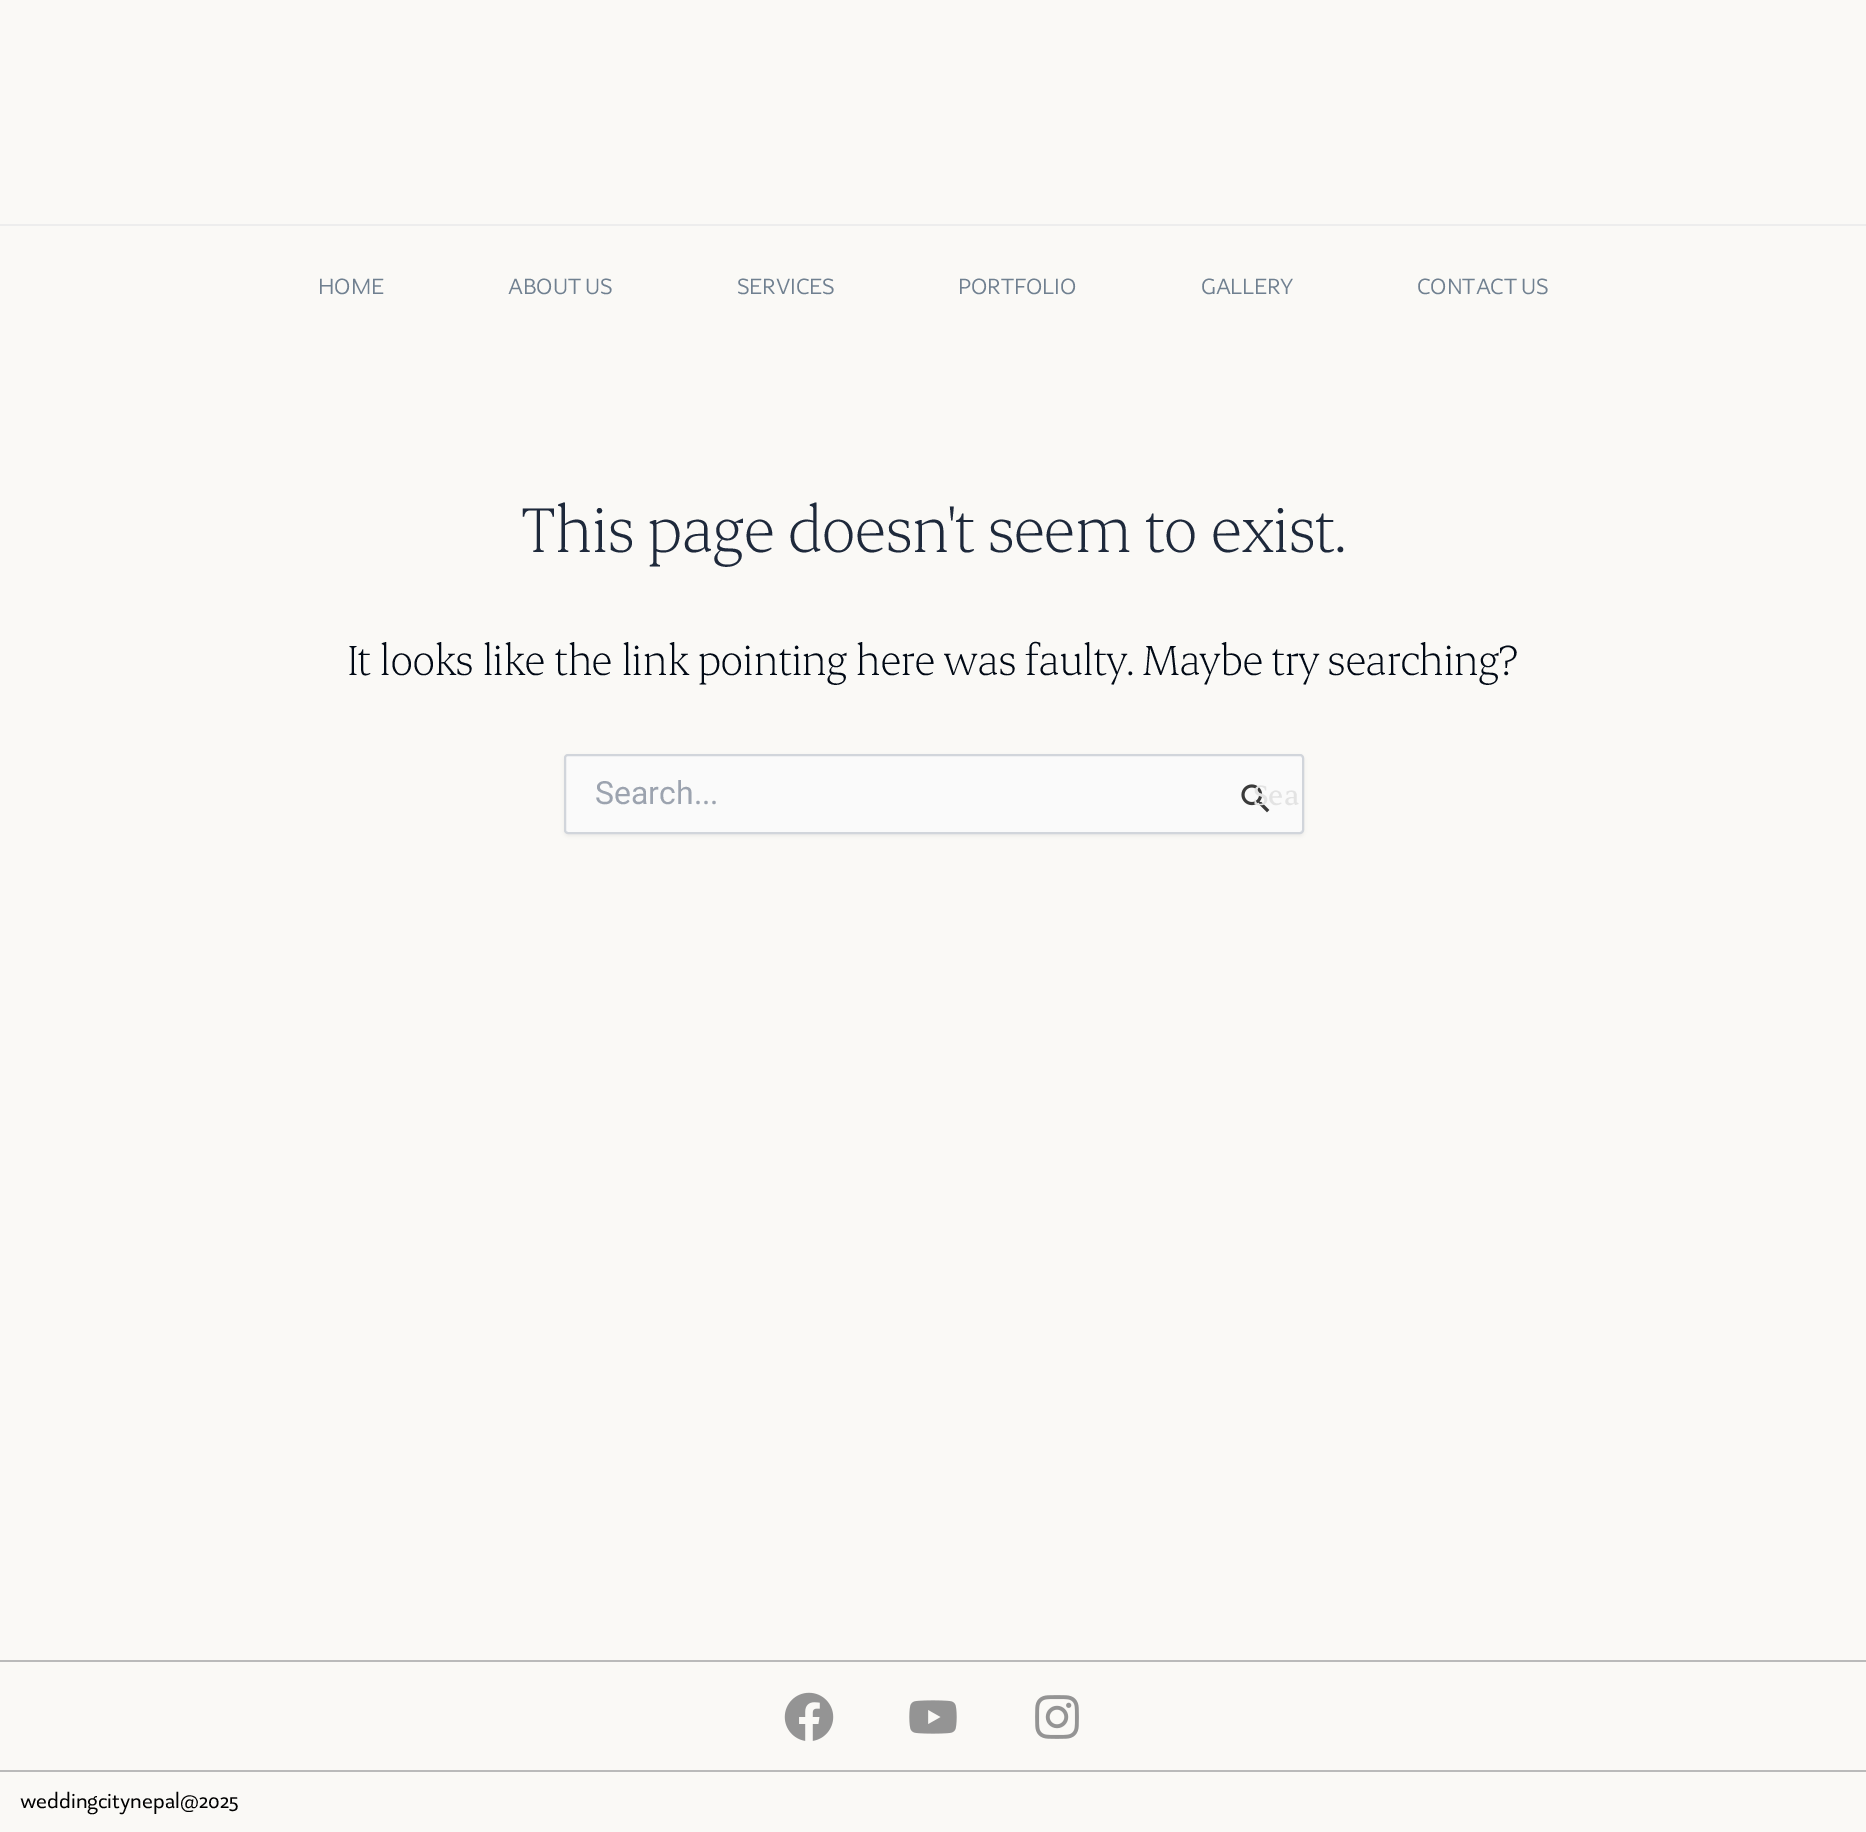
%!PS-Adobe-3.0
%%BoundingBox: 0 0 1866 1832
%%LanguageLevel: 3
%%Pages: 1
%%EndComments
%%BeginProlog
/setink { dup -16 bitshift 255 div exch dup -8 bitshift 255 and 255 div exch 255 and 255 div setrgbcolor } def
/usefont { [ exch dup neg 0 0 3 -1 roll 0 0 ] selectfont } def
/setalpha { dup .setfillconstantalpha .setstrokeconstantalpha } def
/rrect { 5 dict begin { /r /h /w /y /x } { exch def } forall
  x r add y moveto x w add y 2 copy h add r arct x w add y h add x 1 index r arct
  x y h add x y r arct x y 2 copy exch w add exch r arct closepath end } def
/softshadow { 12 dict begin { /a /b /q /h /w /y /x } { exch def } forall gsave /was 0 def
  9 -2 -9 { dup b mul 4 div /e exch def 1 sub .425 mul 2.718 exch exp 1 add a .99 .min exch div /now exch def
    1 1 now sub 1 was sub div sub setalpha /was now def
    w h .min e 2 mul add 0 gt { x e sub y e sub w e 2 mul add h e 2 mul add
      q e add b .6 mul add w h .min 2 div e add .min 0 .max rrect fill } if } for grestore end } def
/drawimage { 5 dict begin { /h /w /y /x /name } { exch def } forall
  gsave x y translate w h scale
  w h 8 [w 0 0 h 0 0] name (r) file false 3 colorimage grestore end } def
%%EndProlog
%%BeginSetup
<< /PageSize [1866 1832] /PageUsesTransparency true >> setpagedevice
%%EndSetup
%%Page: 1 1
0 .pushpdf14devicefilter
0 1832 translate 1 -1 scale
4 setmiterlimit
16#FAF9F6 setink
0 0 1866 1832 rectfill
16#EDEDED setink
0 224 1866 2 rectfill
/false-Regular 22.5 usefont
16#708090 setink
[
    [(HOME) 318 294]
    [(ABOUT US) 508 294]
    [(SERVICES) 737 294]
    [(PORTFOLIO) 958 294]
    [(GALLERY) 1201 294]
    [(CONTACT US) 1417 294]
] { aload pop moveto show } forall
/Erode-Light 72 usefont
16#1E293B setink
521 552 moveto -2.15 0 (This page doesn't seem to exist.) ashow
/Erode-Light 48 usefont
16#010915 setink
347 675 moveto -1.45 0 (It looks like the link pointing here was faulty. Maybe try searching?) ashow
16#000000 setink
564 756 740 80 4 2 0.05 softshadow
16#FAFAFA setink
565 755 738 78 3 rrect gsave fill grestore
16#D1D5DB setink
2 setlinewidth
stroke
/Roboto-Regular 32 usefont
16#9CA3AF setink
595 804 moveto (Search...) show
(img1.raw) 1241 784 29 29 drawimage
/Erode-Medium 32 usefont
16#E3E3E3 setink
1253 805 moveto (Sea) show
16#BABABA setink
0 1660 1866 2 rectfill
(img2.raw) 784 1692 50 49 drawimage
(img3.raw) 909 1700 48 34 drawimage
(img4.raw) 1035 1695 44 44 drawimage
0 1770 1866 2 rectfill
/false-Regular 24 usefont
16#000000 setink
20 1808 moveto (weddingcitynepal@2025) show
.poppdf14devicefilter showpage
%%EOF
